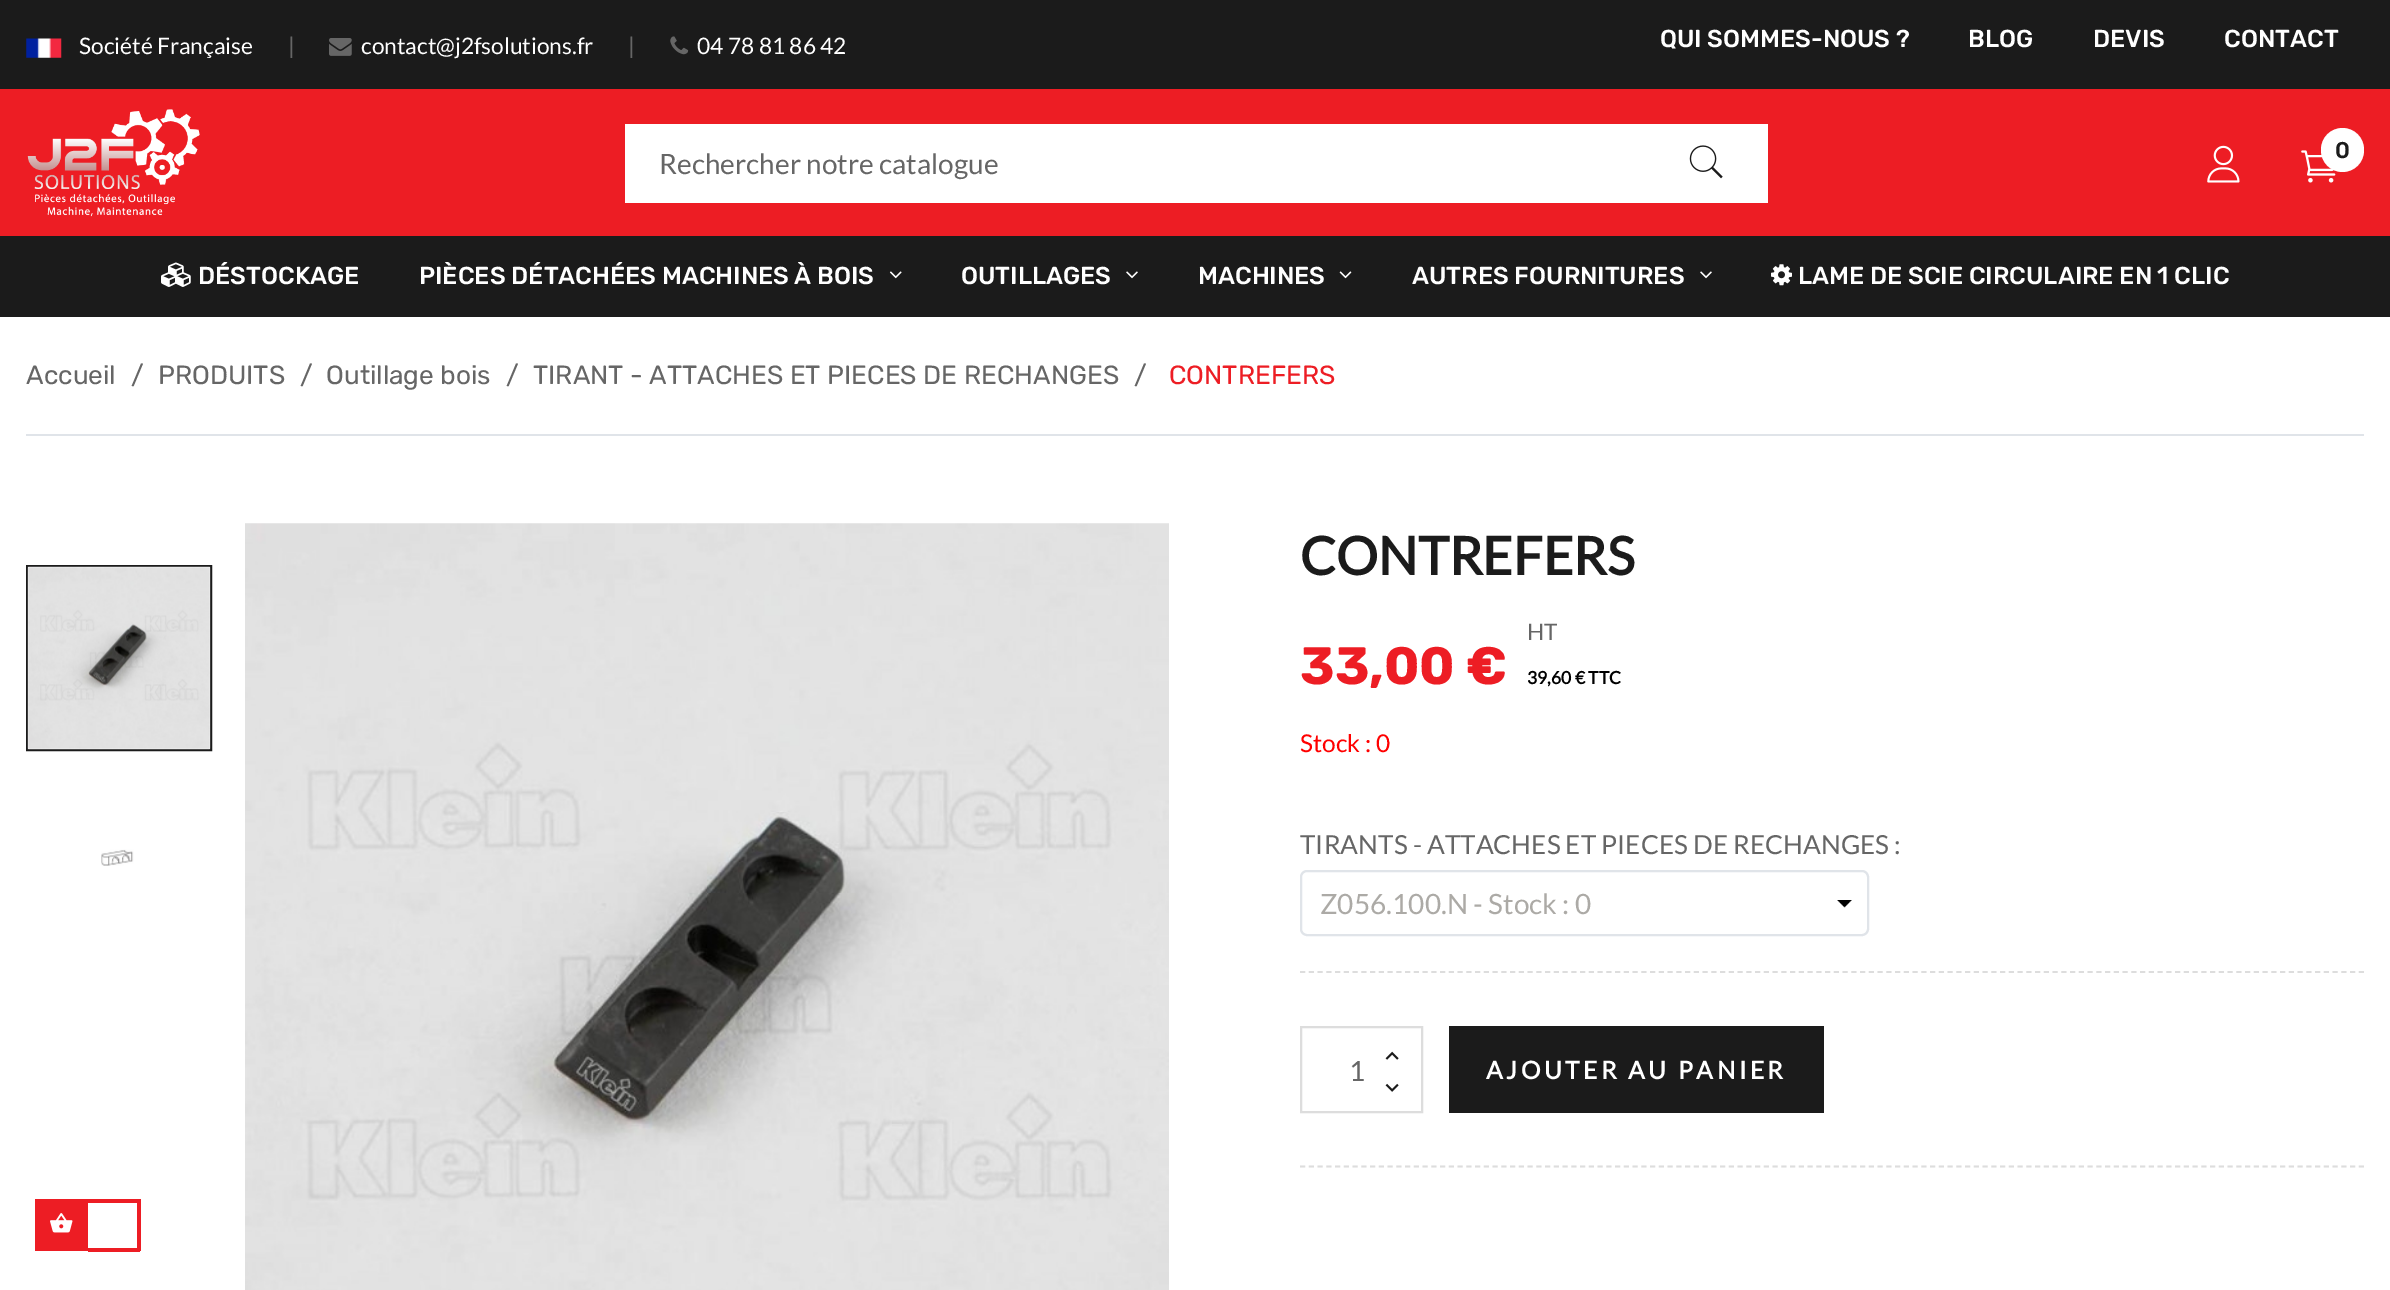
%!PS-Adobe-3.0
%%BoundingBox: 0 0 2390 1290
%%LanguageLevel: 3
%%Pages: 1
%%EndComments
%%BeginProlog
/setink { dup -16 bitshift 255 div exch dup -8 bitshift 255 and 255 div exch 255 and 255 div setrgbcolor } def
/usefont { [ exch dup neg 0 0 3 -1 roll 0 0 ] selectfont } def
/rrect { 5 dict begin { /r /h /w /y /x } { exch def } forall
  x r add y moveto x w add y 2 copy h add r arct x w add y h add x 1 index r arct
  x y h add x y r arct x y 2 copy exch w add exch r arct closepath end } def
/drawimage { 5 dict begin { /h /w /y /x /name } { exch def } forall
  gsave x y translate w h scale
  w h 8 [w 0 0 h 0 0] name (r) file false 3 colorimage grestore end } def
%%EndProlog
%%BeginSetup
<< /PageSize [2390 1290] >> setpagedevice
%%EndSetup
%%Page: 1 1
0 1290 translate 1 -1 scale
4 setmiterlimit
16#FFFFFF setink
0 0 2390 1290 rectfill
16#1B1B1B setink
0 0 2390 89 rectfill
(img1.raw) 26 38 36 20 drawimage
/Lato-Regular 22.75 usefont
16#FFFFFF setink
79 54 moveto (Société Française) show
16#666666 setink
288 54 moveto (|) show
(img2.raw) 329 38 23 18 drawimage
16#FFFFFF setink
361 54 moveto (contact@j2fsolutions.fr) show
16#666666 setink
628 54 moveto (|) show
(img3.raw) 670 36 19 19 drawimage
16#FFFFFF setink
697 54 moveto (04 78 81 86 42) show
/Rubik-Medium 24.5 usefont
[
    [(QUI SOMMES-NOUS ?) 1660 47]
    [(BLOG) 1968 47]
    [(DEVIS) 2093 47]
    [(CONTACT) 2224 47]
] { aload pop moveto show } forall
16#ED1D24 setink
0 89 2390 147 rectfill
(img4.raw) 27 109 173 108 drawimage
(img5.raw) 2207 145 33 38 drawimage
(img6.raw) 2301 150 35 33 drawimage
16#FFFFFF setink
2321 128 43 44 21.5 rrect fill
/Rubik-Medium 22.75 usefont
16#1B1B1B setink
2335 158 moveto (0) show
16#FFFFFF setink
625 124 1143 79 rectfill
/Lato-Regular 28 usefont
16#666666 setink
659 174 moveto (Rechercher notre catalogue) show
(img7.raw) 1689 145 34 34 drawimage
16#1B1B1B setink
0 236 2390 81 rectfill
(img8.raw) 161 262 30 25 drawimage
/Rubik-Medium 24.5 usefont
16#FFFFFF setink
198 284 moveto (DÉSTOCKAGE) show
419 284 moveto (PIÈCES DÉTACHÉES MACHINES À BOIS) show
(img9.raw) 889 271 13 8 drawimage
961 284 moveto (OUTILLAGES) show
(img10.raw) 1126 271 12 8 drawimage
1198 284 moveto (MACHINES) show
(img11.raw) 1339 271 13 8 drawimage
1412 284 moveto (AUTRES FOURNITURES) show
(img10.raw) 1700 271 12 8 drawimage
(img12.raw) 1771 264 21 22 drawimage
1798 284 moveto (LAME DE SCIE CIRCULAIRE EN 1 CLIC) show
16#E0E4E9 setink
26 434 2338 2 rectfill
/Rubik-Regular 26.25 usefont
16#666666 setink
[
    [(Accueil) 26 384]
    [(/) 131 384]
    [(PRODUITS) 158 384]
    [(/) 300 384]
    [(Outillage bois) 326 384]
    [(/) 506 384]
    [(TIRANT - ATTACHES ET PIECES DE RECHANGES) 533 384]
    [(/) 1134 384]
] { aload pop moveto show } forall
16#ED1D24 setink
1169 384 moveto (CONTREFERS) show
16#1B1B1B setink
2 setlinewidth
27 566 184 184 rectstroke
(img13.raw) 27 566 184 184 drawimage
(img14.raw) 101 849 33 17 drawimage
(img15.raw) 245 523 924 767 drawimage
/Lato-Bold 52.5 usefont
1300 575 moveto (CONTREFERS) show
/Rubik-Bold 52.5 usefont
16#ED1D24 setink
1300 684 moveto (33,00 €) show
/Lato-Regular 22.75 usefont
16#666666 setink
1527 640 moveto (HT) show
/Lato-Bold 17.5 usefont
16#000000 setink
1527 684 moveto (39,60 € TTC) show
/Lato-Regular 24.5 usefont
16#FF0000 setink
1300 752 moveto (Stock : 0) show
/Lato-Regular 26.25 usefont
16#666666 setink
1300 854 moveto (TIRANTS - ATTACHES ET PIECES DE RECHANGES :) show
(img16.raw) 1837 900 15 8 drawimage
16#E0E4E9 setink
1301 871 567 64 6 rrect stroke
/Lato-Regular 28 usefont
16#ACAAA6 setink
1320 914 moveto (Z056.100.N - Stock : 0) show
16#DDDDDD setink
1.8 setlinewidth
[5.25 3.5] 0 setdash
1300 972 moveto 2364 972 lineto stroke
1300 1166.5 moveto 2364 1166.5 lineto stroke
2 setlinewidth
[] 0 setdash
1301 1027 121 85 rectstroke
16#666666 setink
1349 1081 moveto (1) show
(img17.raw) 1385 1051 14 9 drawimage
(img18.raw) 1385 1083 14 9 drawimage
16#1B1B1B setink
1449 1026 375 87 rectfill
/Lato-Bold 24.5 usefont
16#FFFFFF setink
1486 1079 moveto 3.5 0 (AJOUTER AU PANIER) ashow
16#ED1D24 setink
35 1199 53 52 rectfill
(img19.raw) 50 1213 23 20 drawimage
[
    [88 1199 52 4 16#ED1D24]
    [137 1199 4 52 16#ED1D24]
    [88 1248 52 4 16#ED1D24]
] { aload pop setink rectfill } forall
showpage
%%EOF
